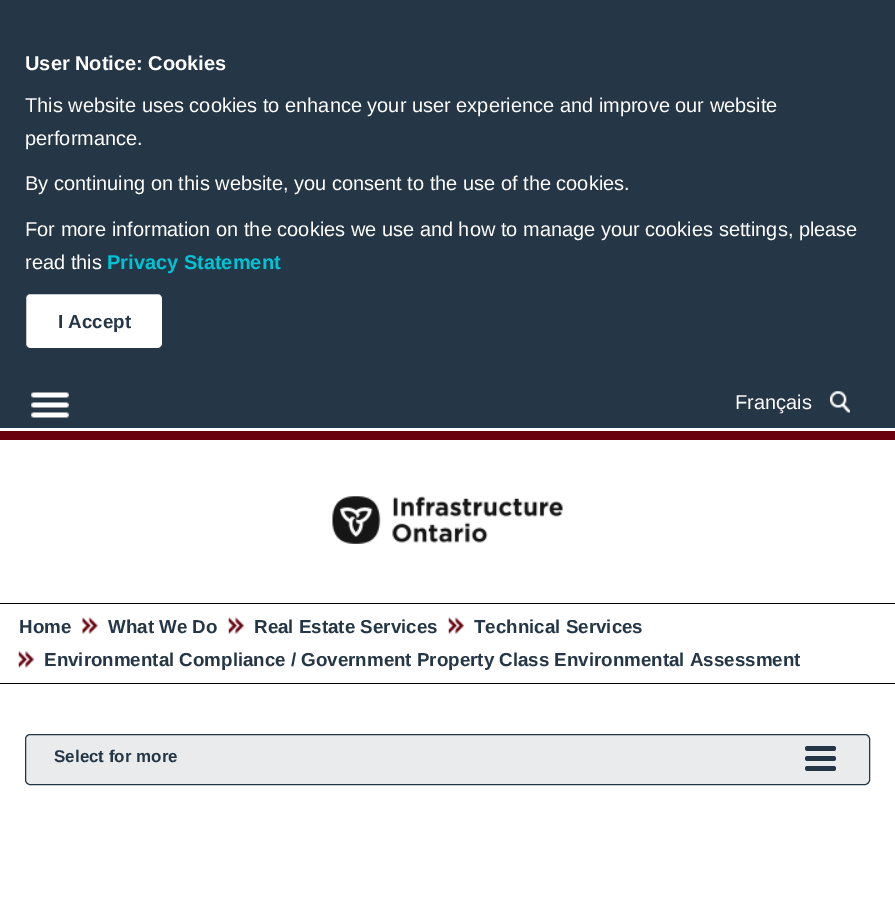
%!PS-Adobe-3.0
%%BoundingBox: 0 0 895 897
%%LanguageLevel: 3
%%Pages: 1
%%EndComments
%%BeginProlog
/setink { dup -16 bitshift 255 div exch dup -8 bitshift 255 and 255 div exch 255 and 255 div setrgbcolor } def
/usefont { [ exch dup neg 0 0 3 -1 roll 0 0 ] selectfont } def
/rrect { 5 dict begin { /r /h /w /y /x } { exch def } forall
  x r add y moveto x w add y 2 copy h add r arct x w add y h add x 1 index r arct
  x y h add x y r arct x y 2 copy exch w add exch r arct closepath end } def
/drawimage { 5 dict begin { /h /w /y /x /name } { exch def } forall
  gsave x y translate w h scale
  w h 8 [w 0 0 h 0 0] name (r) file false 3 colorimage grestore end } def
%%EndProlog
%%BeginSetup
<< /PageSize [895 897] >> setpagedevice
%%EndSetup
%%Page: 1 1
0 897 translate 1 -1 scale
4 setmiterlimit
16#253746 setink
0 0 895 897 rectfill
/LiberationSans-Bold 20 usefont
16#FFFFFF setink
25 70 moveto (User Notice: Cookies) show
/LiberationSans-Regular 20 usefont
[
    [(This website uses cookies to enhance your user experience and improve our website) 25 112]
    [(performance.) 25 145]
    [(By continuing on this website, you consent to the use of the cookies.) 25 190]
    [(For more information on the cookies we use and how to manage your cookies settings, please) 25 236]
    [(read this) 25 269]
] { aload pop moveto show } forall
/LiberationSans-Bold 20 usefont
16#00C4D6 setink
107 269 moveto (Privacy Statement) show
16#FFFFFF setink
25.5 293.5 137 55 4.5 rrect gsave fill grestore
16#253746 setink
stroke
/LiberationSans-Bold 18.75 usefont
58 328 moveto (I Accept) show
16#FFFFFF setink
0 428 895 255 rectfill
16#000000 setink
0 683 895 1 rectfill
(img1.raw) 31 392 38 26 drawimage
/LiberationSans-Regular 20 usefont
16#FFFFFF setink
735 409 moveto (Français) show
(img2.raw) 830 391 20 22 drawimage
16#68000D setink
0 431 895 9 rectfill
(img3.raw) 332 496 231 48 drawimage
16#000000 setink
0 603 895 1 rectfill
/LiberationSans-Bold 18.75 usefont
16#253746 setink
19 633 moveto (Home) show
(img4.raw) 82 617 16 17 drawimage
108 633 moveto (What We Do) show
(img5.raw) 228 617 16 17 drawimage
254 633 moveto (Real Estate Services) show
(img5.raw) 448 617 16 17 drawimage
474 633 moveto (Technical Services) show
(img6.raw) 18 651 16 17 drawimage
44 666 moveto (Environmental Compliance / Government Property Class Environmental Assessment) show
16#FFFFFF setink
0 684 895 213 rectfill
16#E9EBEC setink
25.5 734.5 844 50 4.5 rrect gsave fill grestore
16#253746 setink
stroke
/LiberationSans-Bold 17 usefont
54 762 moveto (Select for more) show
805 746 31 5 2.5 rrect fill
805 756 31 5 2.5 rrect fill
805 766 31 5 2.5 rrect fill
showpage
%%EOF
